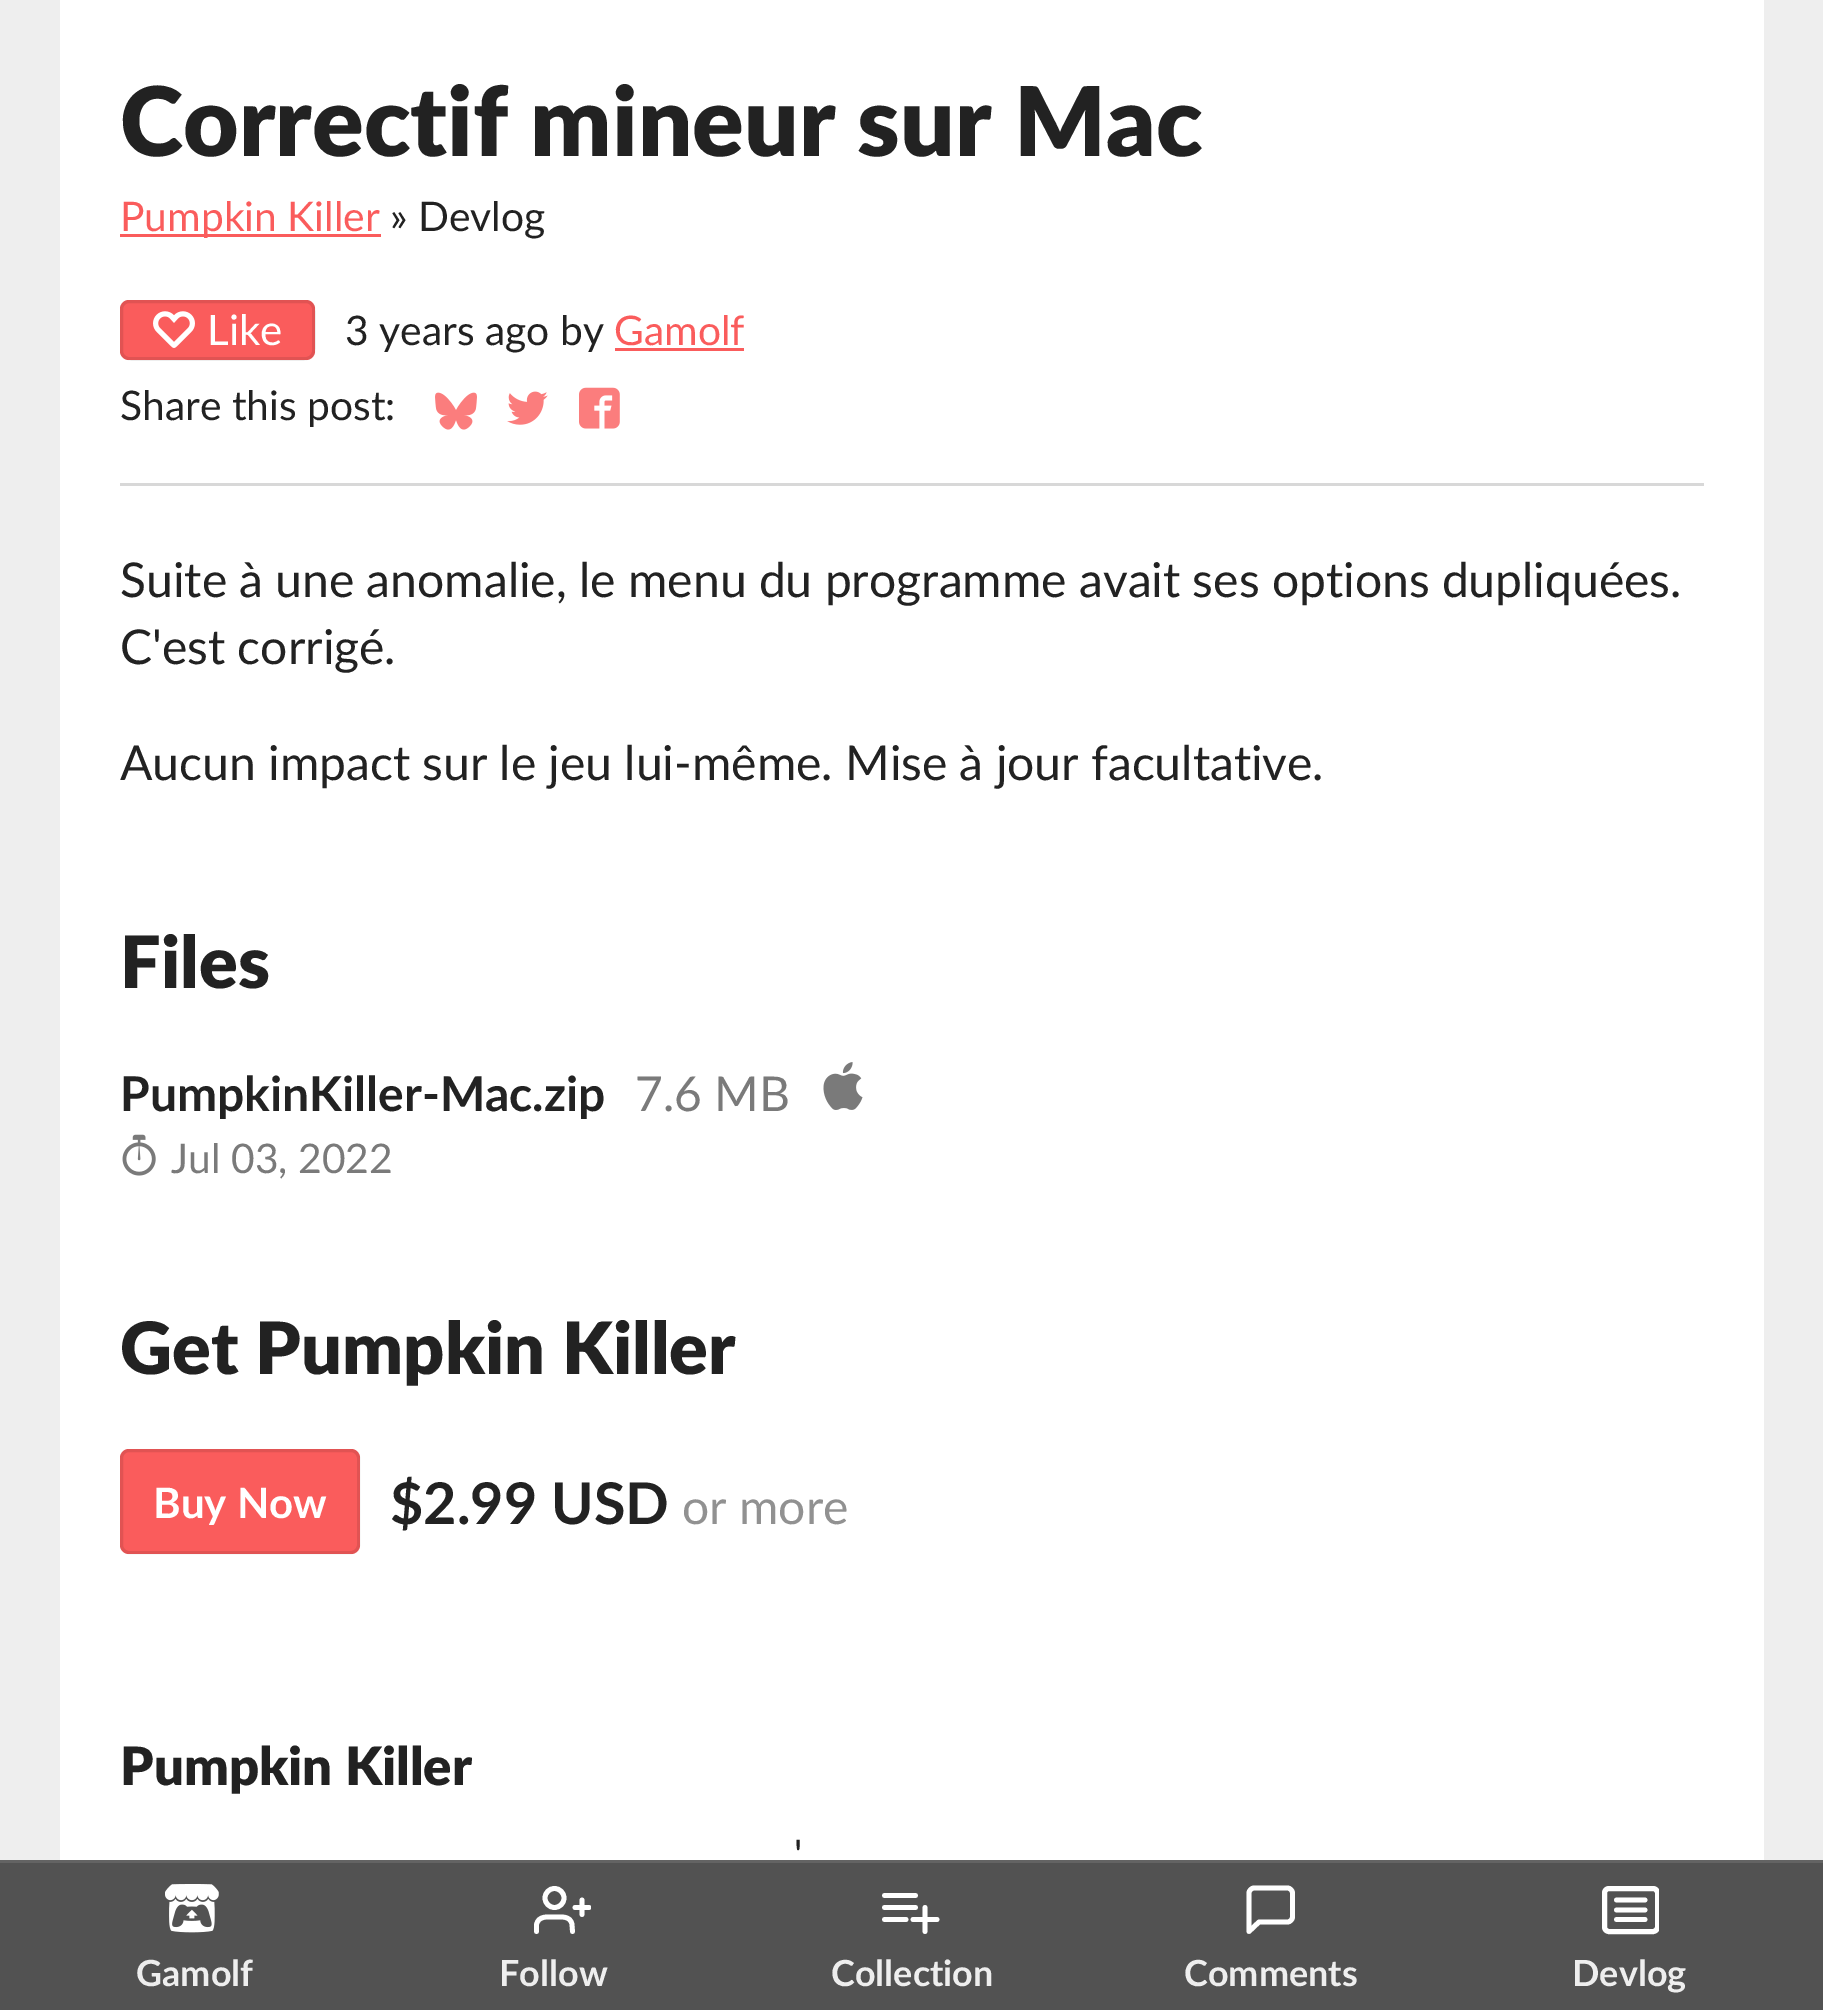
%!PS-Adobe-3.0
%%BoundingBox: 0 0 1823 2010
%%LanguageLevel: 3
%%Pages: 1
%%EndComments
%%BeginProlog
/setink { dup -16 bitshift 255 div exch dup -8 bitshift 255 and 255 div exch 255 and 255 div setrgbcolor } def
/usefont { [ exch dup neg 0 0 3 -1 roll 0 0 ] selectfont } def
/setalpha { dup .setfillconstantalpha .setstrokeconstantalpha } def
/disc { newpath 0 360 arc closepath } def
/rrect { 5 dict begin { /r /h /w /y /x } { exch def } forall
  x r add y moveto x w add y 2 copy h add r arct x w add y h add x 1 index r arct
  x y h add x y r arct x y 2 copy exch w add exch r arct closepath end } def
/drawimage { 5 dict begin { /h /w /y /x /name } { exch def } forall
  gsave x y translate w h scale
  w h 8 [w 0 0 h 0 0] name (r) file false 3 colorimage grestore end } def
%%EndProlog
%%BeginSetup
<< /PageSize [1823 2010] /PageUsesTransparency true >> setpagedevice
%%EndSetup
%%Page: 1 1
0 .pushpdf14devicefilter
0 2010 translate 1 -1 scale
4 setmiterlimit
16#EEEEEE setink
0 0 1823 2010 rectfill
16#FFFFFF setink
60 0 1704 1860 rectfill
/Lato-Black 96 usefont
16#222222 setink
120 156 moveto (Correctif mineur sur Mac) show
16#FA5C5C setink
120 234 261 3 rectfill
/Lato-Regular 40.75 usefont
120 231 moveto (Pumpkin Killer) show
16#222222 setink
390 231 moveto (» Devlog) show
16#D8D8D8 setink
3 setlinewidth
121.5 301.5 192 57 10.5 rrect stroke
16#FA5C5C setink
120 300 195 60 9 rrect fill
0.1 setalpha
16#000000 setink
121.5 301.5 192 57 7.5 rrect stroke
1 setalpha
(img1.raw) 153 311 42 37 drawimage
/Lato-Regular 42 usefont
16#FFFFFF setink
207 345 moveto (Like) show
/Lato-Regular 40.75 usefont
16#222222 setink
345 345 moveto (3 years ago by) show
16#FA5C5C setink
614 345 moveto (Gamolf) show
615 348 129 3 rectfill
16#222222 setink
120 420 moveto (Share this post:) show
(img2.raw) 435 392 42 38 drawimage
(img3.raw) 507 391 41 34 drawimage
(img4.raw) 579 387 41 42 drawimage
16#D8D8D8 setink
120 483 1584 3 rectfill
/Lato-Regular 48 usefont
16#222222 setink
[
    [(Suite à une anomalie, le menu du programme avait ses options dupliquées.) 120 597]
    [(C'est corrigé.) 120 664]
    [(Aucun impact sur le jeu lui-même. Mise à jour facultative.) 120 780]
] { aload pop moveto show } forall
/Lato-Black 72 usefont
120 988 moveto (Files) show
gsave
120 1062 486 57 rectclip
/Lato-Bold 48 usefont
120 1111 moveto (PumpkinKiller-Mac.zip) show
grestore
/Lato-Regular 48 usefont
16#7A7A7A setink
635 1111 moveto (7.6 MB) show
(img5.raw) 823 1062 40 48 drawimage
(img6.raw) 122 1134 34 42 drawimage
/Lato-Regular 40.75 usefont
171 1173 moveto (Jul 03, 2022) show
/Lato-Black 72 usefont
16#222222 setink
120 1374 moveto (Get Pumpkin Killer) show
16#FA5C5C setink
120 1449 240 105 9 rrect fill
0.1 setalpha
16#000000 setink
121.5 1450.5 237 102 7.5 rrect stroke
/Lato-Bold 42 usefont
1 setalpha
16#FFFFFF setink
153 1518 moveto (Buy Now) show
/Lato-Bold 57.5 usefont
16#222222 setink
390 1524 moveto ($2.99 USD) show
/Lato-Regular 48 usefont
16#919191 setink
682 1524 moveto (or more) show
/Lato-Black 52.75 usefont
16#222222 setink
120 1785 moveto (Pumpkin Killer) show
/Lato-Regular 40.75 usefont
794 1869 moveto (') show
16#525252 setink
0 1863 1823 147 rectfill
16#636363 setink
0 1860 1823 3 rectfill
(img7.raw) 165 1884 54 49 drawimage
/Lato-Bold 36 usefont
16#EEEEEE setink
136 1986 moveto (Gamolf) show
16#FFFFFF setink
4.8 setlinewidth
1 setlinecap
1 setlinejoin
572.5 1931.5 moveto 572 1924.5 lineto 570.5 1915.5 561 1917 554.5 1917 curveto 547.5 1917 538.5 1915.5 536.5 1924.5 curveto 536.5 1931.5 lineto stroke
0 setlinecap
0 setlinejoin
554.5 1898 9.5 disc stroke
1 setlinecap
1 setlinejoin
582 1900 moveto 582 1914.5 lineto stroke
gsave
534 1881 57 57 rectclip
589 1907.5 moveto 575 1907.5 lineto stroke
grestore
16#EEEEEE setink
499 1986 moveto (Follow) show
16#FFFFFF setink
884.5 1895.5 moveto 915.5 1895.5 lineto 884.5 1907.5 moveto 915.5 1907.5 lineto 884.5 1919.5 moveto 906 1919.5 lineto 925 1907.5 moveto 925 1931.5 lineto 913 1919.5 moveto 937 1919.5 lineto stroke
16#EEEEEE setink
831 1986 moveto (Collection) show
16#FFFFFF setink
1292.5 1917 moveto 1292.5 1919.5 1290 1922 1287.5 1922 curveto 1259 1922 lineto 1249 1931.5 lineto 1249 1893 lineto 1249 1890.5 1251.5 1888 1254 1888 curveto 1287.5 1888 lineto 1290 1888 1292.5 1890.5 1292.5 1893 curveto closepath stroke
16#EEEEEE setink
1184 1986 moveto (Comments) show
gsave
1602 1881 57 57 rectclip
16#FFFFFF setink
5 setlinewidth
0 setlinecap
0 setlinejoin
1604.5 1888.5 53 43 4.5 rrect stroke
grestore
16#FFFFFF setink
1616.5 1900 moveto 1645 1900 lineto 1616.5 1910 moveto 1645 1910 lineto 1616.5 1919.5 moveto 1645 1919.5 lineto stroke
16#EEEEEE setink
1572 1986 moveto (Devlog) show
.poppdf14devicefilter showpage
%%EOF
